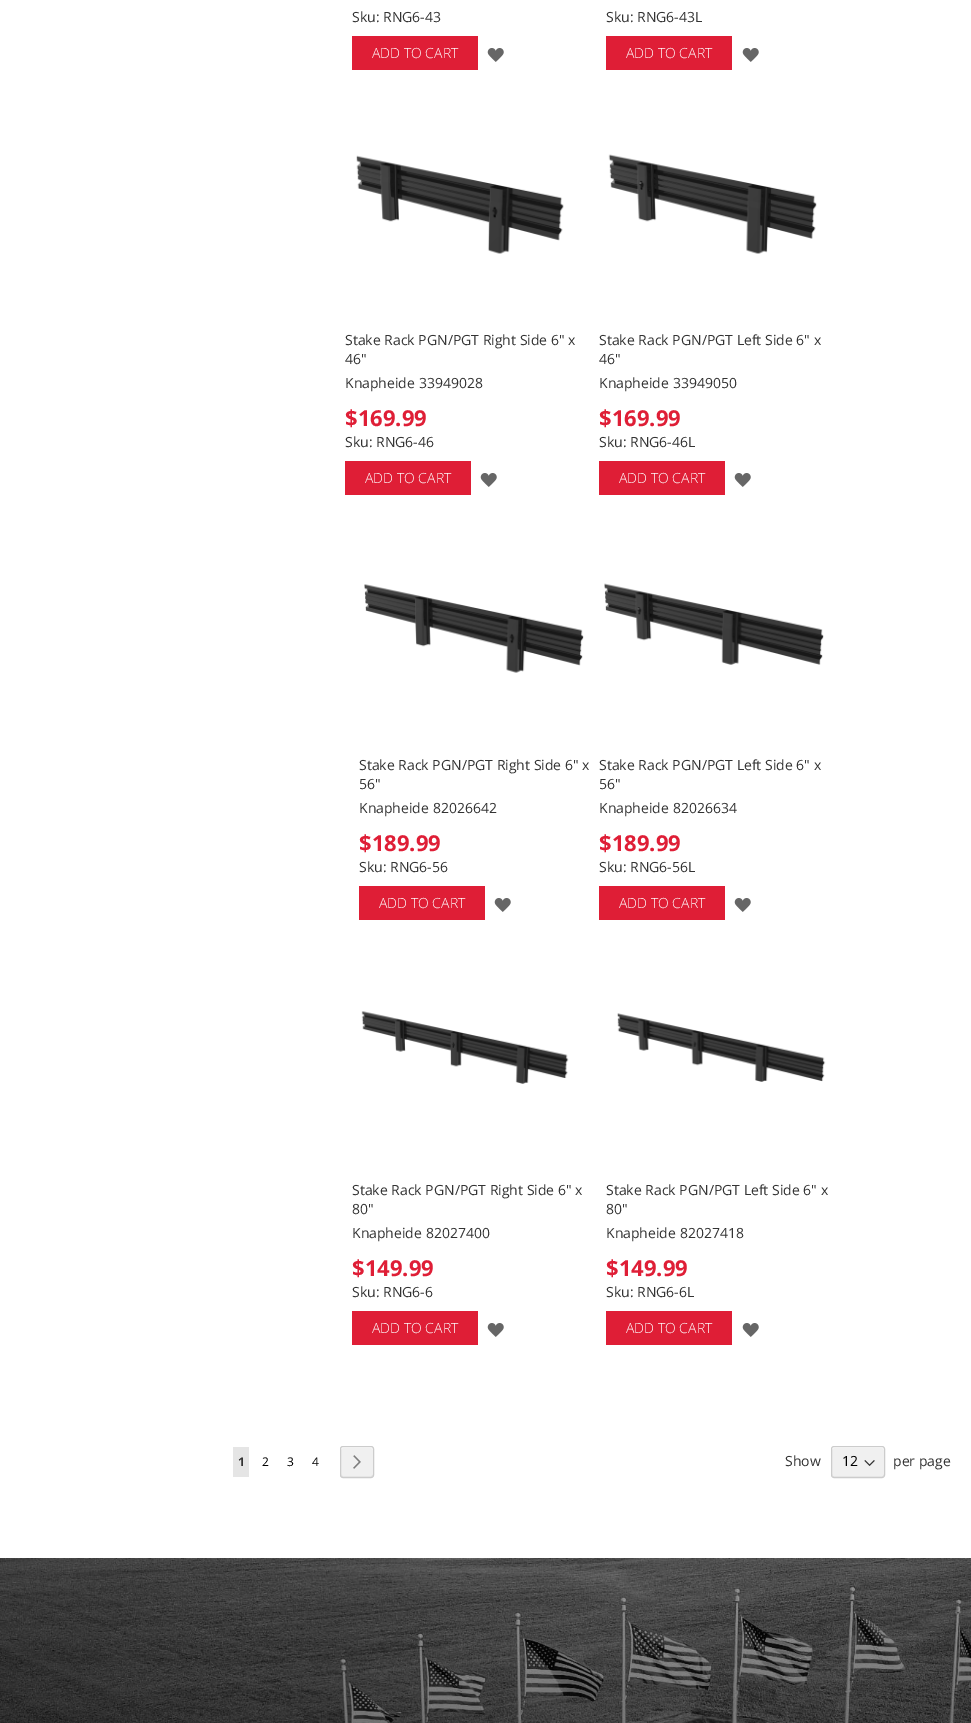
%!PS-Adobe-3.0
%%BoundingBox: 0 0 971 1723
%%LanguageLevel: 3
%%Pages: 1
%%EndComments
%%BeginProlog
/setink { dup -16 bitshift 255 div exch dup -8 bitshift 255 and 255 div exch 255 and 255 div setrgbcolor } def
/usefont { [ exch dup neg 0 0 3 -1 roll 0 0 ] selectfont } def
/rrect { 5 dict begin { /r /h /w /y /x } { exch def } forall
  x r add y moveto x w add y 2 copy h add r arct x w add y h add x 1 index r arct
  x y h add x y r arct x y 2 copy exch w add exch r arct closepath end } def
/drawimage { 5 dict begin { /h /w /y /x /name } { exch def } forall
  gsave x y translate w h scale
  w h 8 [w 0 0 h 0 0] name (r) file false 3 colorimage grestore end } def
%%EndProlog
%%BeginSetup
<< /PageSize [971 1723] >> setpagedevice
%%EndSetup
%%Page: 1 1
0 1723 translate 1 -1 scale
4 setmiterlimit
16#FFFFFF setink
0 0 971 1723 rectfill
/OpenSans-Regular 14 usefont
16#333333 setink
352 22 moveto (Sku: RNG6-43) show
16#DF1E36 setink
352 36 126 34 rectfill
/OpenSans-Light 14 usefont
16#FFFFFF setink
372 58 moveto (ADD TO CART) show
(img1.raw) 487 48 17 14 drawimage
/OpenSans-Regular 14 usefont
16#333333 setink
606 22 moveto (Sku: RNG6-43L) show
16#DF1E36 setink
606 36 126 34 rectfill
/OpenSans-Light 14 usefont
16#FFFFFF setink
626 58 moveto (ADD TO CART) show
(img1.raw) 742 48 17 14 drawimage
(img2.raw) 356 155 208 99 drawimage
/OpenSans-Regular 14 usefont
16#333333 setink
[
    [(Stake Rack PGN/PGT Right Side 6" x) 345 345]
    [(46") 345 364]
    [(Knapheide 33949028) 345 388]
] { aload pop moveto show } forall
/OpenSans-Bold 22 usefont
16#DF1E36 setink
345 426 moveto ($169.99) show
/OpenSans-Regular 14 usefont
16#333333 setink
345 447 moveto (Sku: RNG6-46) show
16#DF1E36 setink
345 461 126 34 rectfill
/OpenSans-Light 14 usefont
16#FFFFFF setink
365 483 moveto (ADD TO CART) show
(img1.raw) 480 473 17 14 drawimage
(img3.raw) 608 154 209 100 drawimage
/OpenSans-Regular 14 usefont
16#333333 setink
[
    [(Stake Rack PGN/PGT Left Side 6" x) 599 345]
    [(46") 599 364]
    [(Knapheide 33949050) 599 388]
] { aload pop moveto show } forall
/OpenSans-Bold 22 usefont
16#DF1E36 setink
599 426 moveto ($169.99) show
/OpenSans-Regular 14 usefont
16#333333 setink
599 447 moveto (Sku: RNG6-46L) show
16#DF1E36 setink
599 461 126 34 rectfill
/OpenSans-Light 14 usefont
16#FFFFFF setink
619 483 moveto (ADD TO CART) show
(img1.raw) 734 473 17 14 drawimage
(img4.raw) 364 584 220 89 drawimage
/OpenSans-Regular 14 usefont
16#333333 setink
[
    [(Stake Rack PGN/PGT Right Side 6" x) 359 770]
    [(56") 359 789]
    [(Knapheide 82026642) 359 813]
] { aload pop moveto show } forall
/OpenSans-Bold 22 usefont
16#DF1E36 setink
359 851 moveto ($189.99) show
/OpenSans-Regular 14 usefont
16#333333 setink
359 872 moveto (Sku: RNG6-56) show
16#DF1E36 setink
359 886 126 34 rectfill
/OpenSans-Light 14 usefont
16#FFFFFF setink
379 908 moveto (ADD TO CART) show
(img1.raw) 494 898 17 14 drawimage
(img5.raw) 604 583 220 82 drawimage
/OpenSans-Regular 14 usefont
16#333333 setink
[
    [(Stake Rack PGN/PGT Left Side 6" x) 599 770]
    [(56") 599 789]
    [(Knapheide 82026634) 599 813]
] { aload pop moveto show } forall
/OpenSans-Bold 22 usefont
16#DF1E36 setink
599 851 moveto ($189.99) show
/OpenSans-Regular 14 usefont
16#333333 setink
599 872 moveto (Sku: RNG6-56L) show
16#DF1E36 setink
599 886 126 34 rectfill
/OpenSans-Light 14 usefont
16#FFFFFF setink
619 908 moveto (ADD TO CART) show
(img1.raw) 734 898 17 14 drawimage
(img6.raw) 361 1011 208 73 drawimage
/OpenSans-Regular 14 usefont
16#333333 setink
[
    [(Stake Rack PGN/PGT Right Side 6" x) 352 1195]
    [(80") 352 1214]
    [(Knapheide 82027400) 352 1238]
] { aload pop moveto show } forall
/OpenSans-Bold 22 usefont
16#DF1E36 setink
352 1276 moveto ($149.99) show
/OpenSans-Regular 14 usefont
16#333333 setink
352 1297 moveto (Sku: RNG6-6) show
16#DF1E36 setink
352 1311 126 34 rectfill
/OpenSans-Light 14 usefont
16#FFFFFF setink
372 1333 moveto (ADD TO CART) show
(img1.raw) 487 1323 17 14 drawimage
(img7.raw) 617 1013 209 69 drawimage
/OpenSans-Regular 14 usefont
16#333333 setink
[
    [(Stake Rack PGN/PGT Left Side 6" x) 606 1195]
    [(80") 606 1214]
    [(Knapheide 82027418) 606 1238]
] { aload pop moveto show } forall
/OpenSans-Bold 22 usefont
16#DF1E36 setink
606 1276 moveto ($149.99) show
/OpenSans-Regular 14 usefont
16#333333 setink
606 1297 moveto (Sku: RNG6-6L) show
16#DF1E36 setink
606 1311 126 34 rectfill
/OpenSans-Light 14 usefont
16#FFFFFF setink
626 1333 moveto (ADD TO CART) show
(img1.raw) 742 1323 17 14 drawimage
16#E5E5E5 setink
233 1447 16 30 rectfill
/OpenSans-Bold 12 usefont
16#333333 setink
238 1466 moveto (1) show
/OpenSans-Regular 12 usefont
16#000000 setink
[
    [(2) 262 1466]
    [(3) 287 1466]
    [(4) 312 1466]
] { aload pop moveto show } forall
16#F0F0F0 setink
340 1446 34 32 3 rrect fill
16#E5E5E5 setink
341 1474 moveto 341 1478 344 1477 347.5 1477 curveto 366.5 1477 lineto 370 1477 373 1478 373 1474 curveto 373 1475 372 1476 371 1476 curveto 343 1476 lineto 342 1476 341 1475 341 1474 curveto closepath fill
16#FFFFFF setink
343 1448 moveto 371 1448 lineto 372 1448 373 1449 373 1450 curveto 373 1446 370 1447 366.5 1447 curveto 347.5 1447 lineto 344 1447 341 1446 341 1450 curveto 341 1449 342 1448 343 1448 curveto closepath fill
16#CCCCCC setink
340.5 1446.5 33 31 2.5 rrect stroke
(img8.raw) 353 1455 8 14 drawimage
/OpenSans-Regular 14 usefont
16#333333 setink
785 1466 moveto (Show) show
16#F0F0F0 setink
832 1447 52 30 2 rrect fill
(img9.raw) 864 1460 11 6 drawimage
16#E5E5E5 setink
832 1474 moveto 832 1479 838 1477 842 1477 curveto 874 1477 lineto 878 1477 884 1479 884 1474 curveto 883 1476 lineto 833 1476 lineto closepath fill
16#FFFFFF setink
834 1448 moveto 882 1448 lineto 883 1448 884 1449 884 1450 curveto 884 1445 878 1447 874 1447 curveto 842 1447 lineto 838 1447 832 1445 832 1450 curveto 832 1449 833 1448 834 1448 curveto closepath fill
16#CCCCCC setink
831.5 1446.5 53 31 2.5 rrect stroke
16#000000 setink
842 1466 moveto (12) show
16#333333 setink
893 1466 moveto (per page) show
(img10.raw) 0 1558 971 165 drawimage
showpage
%%EOF
